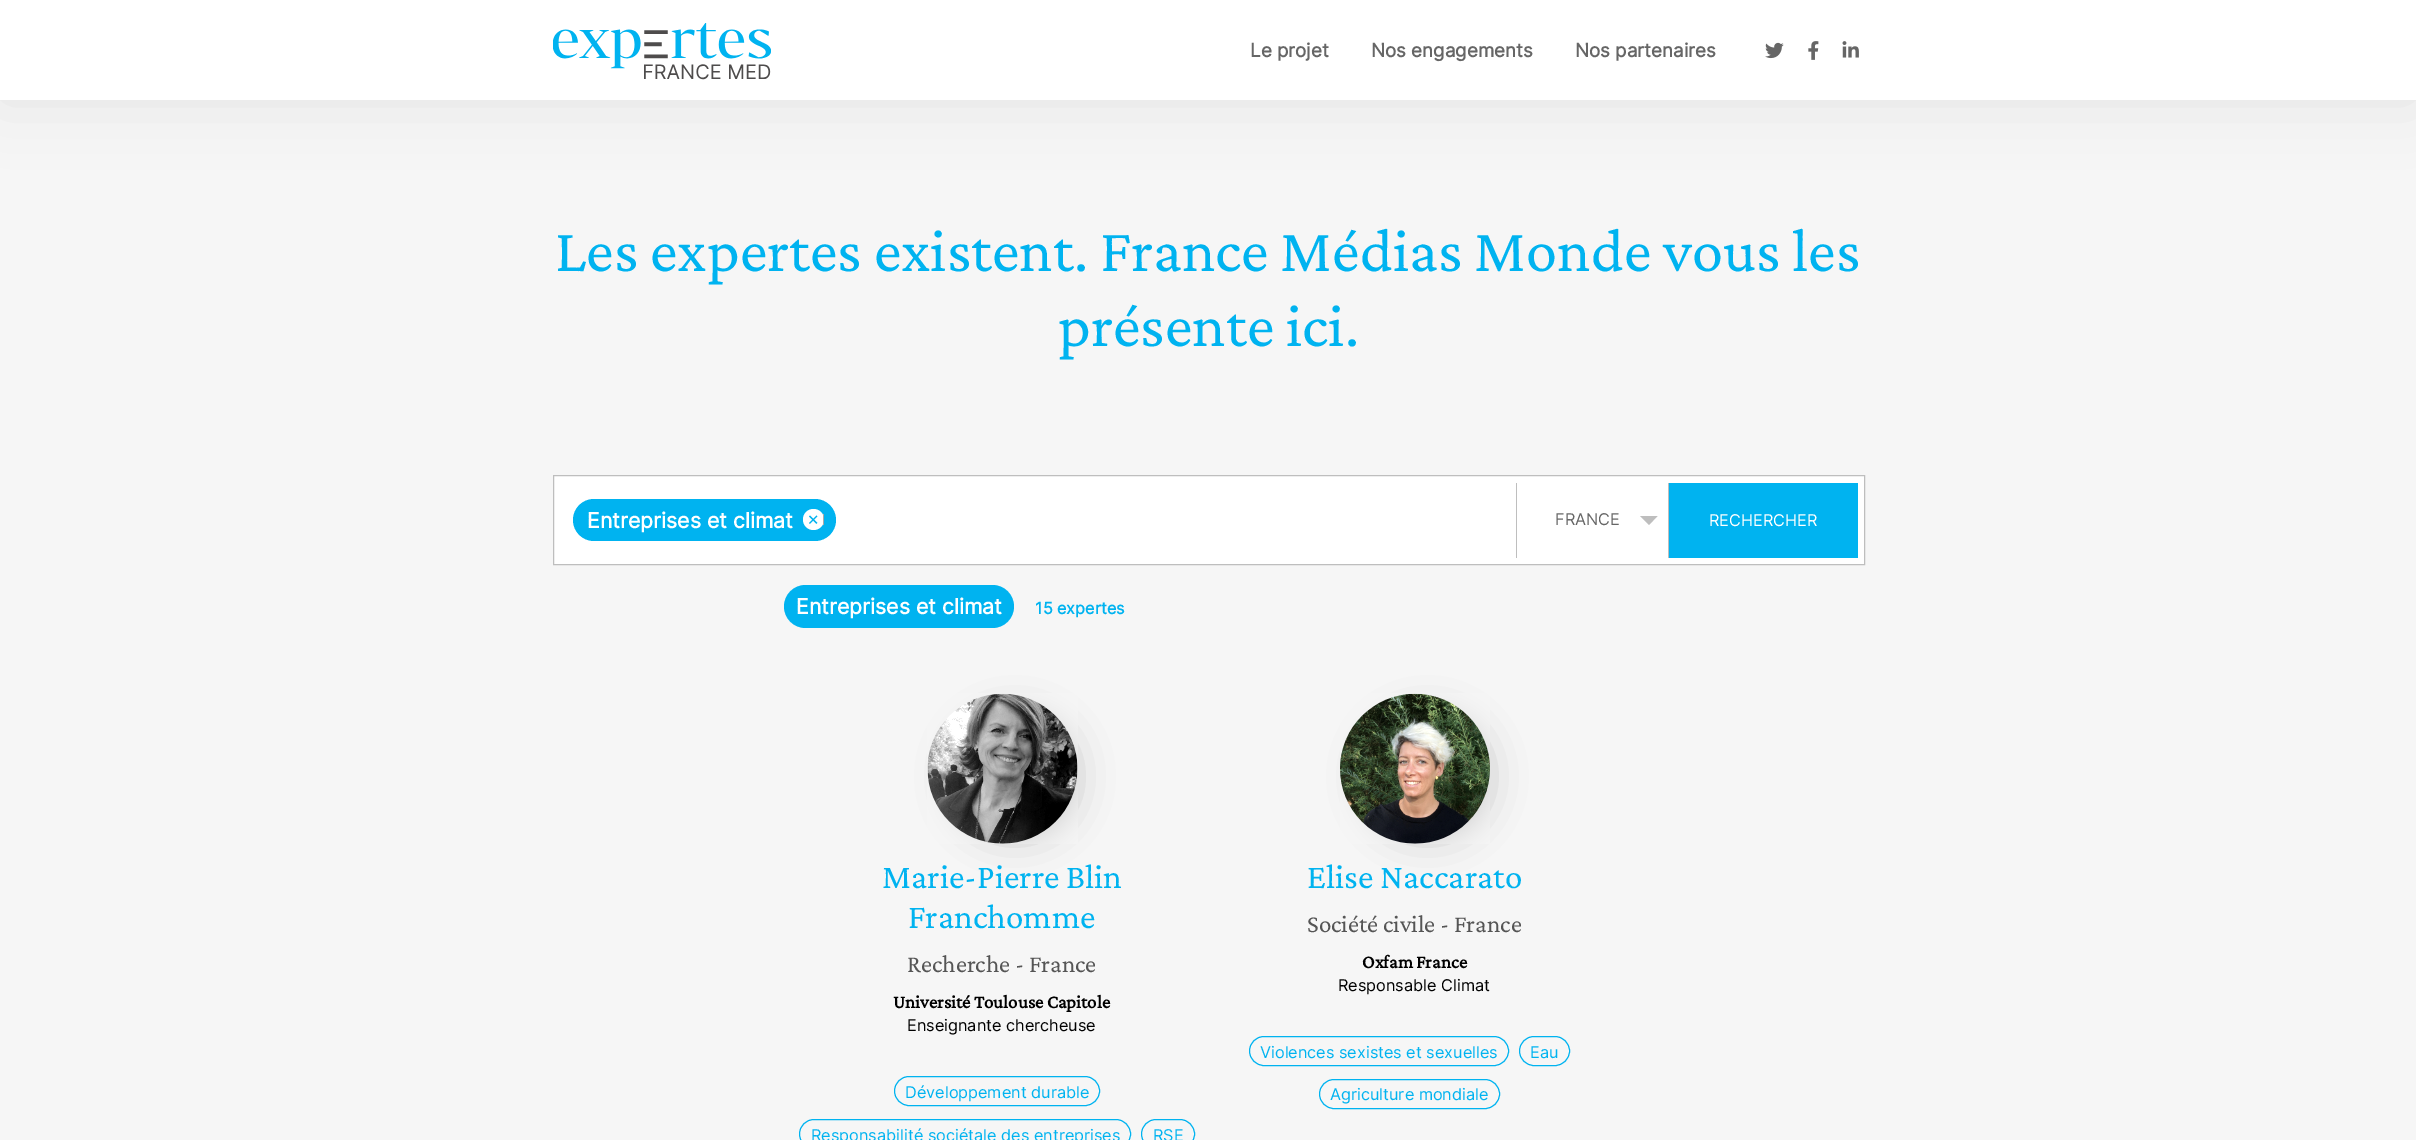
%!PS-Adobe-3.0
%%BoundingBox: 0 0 2416 1140
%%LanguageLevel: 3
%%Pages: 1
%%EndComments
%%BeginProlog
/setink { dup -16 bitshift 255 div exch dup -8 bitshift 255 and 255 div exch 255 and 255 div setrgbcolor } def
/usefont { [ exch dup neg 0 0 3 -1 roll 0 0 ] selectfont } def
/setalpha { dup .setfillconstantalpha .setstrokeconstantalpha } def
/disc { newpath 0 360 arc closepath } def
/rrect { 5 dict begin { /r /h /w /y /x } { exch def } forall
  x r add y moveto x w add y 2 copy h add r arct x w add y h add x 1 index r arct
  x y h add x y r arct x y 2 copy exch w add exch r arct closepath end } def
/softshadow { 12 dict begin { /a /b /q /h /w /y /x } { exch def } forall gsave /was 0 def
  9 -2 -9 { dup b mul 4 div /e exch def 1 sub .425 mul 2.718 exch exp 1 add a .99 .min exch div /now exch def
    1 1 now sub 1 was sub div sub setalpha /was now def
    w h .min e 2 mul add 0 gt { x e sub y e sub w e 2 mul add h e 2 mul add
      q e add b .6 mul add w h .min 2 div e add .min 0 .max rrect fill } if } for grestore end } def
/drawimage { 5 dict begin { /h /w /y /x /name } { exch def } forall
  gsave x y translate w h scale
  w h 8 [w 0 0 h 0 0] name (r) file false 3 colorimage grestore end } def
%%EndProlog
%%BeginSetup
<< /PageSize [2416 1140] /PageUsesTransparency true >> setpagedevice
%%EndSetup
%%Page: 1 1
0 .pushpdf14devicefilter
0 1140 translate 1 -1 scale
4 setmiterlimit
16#F6F6F6 setink
0 0 2416 1140 rectfill
16#000000 setink
0 0 2416 100 0 31 0.07 softshadow
16#FFFFFF setink
0 0 2416 100 rectfill
(img1.raw) 553 23 218 57 drawimage
/Inter-Bold 18.75 usefont
16#666666 setink
[
    [(Le projet) 1250 57]
    [(Nos engagements) 1371 57]
    [(Nos partenaires) 1575 57]
] { aload pop moveto show } forall
(img2.raw) 1765 42 19 17 drawimage
(img3.raw) 1808 41 11 19 drawimage
(img4.raw) 1842 41 17 17 drawimage
/CrimsonPro-Regular 62.5 usefont
16#00B3F0 setink
555 271 moveto (Les expertes existent. France Médias Monde vous les) show
1058 346 moveto (présente ici.) show
16#FFFFFF setink
553.5 475.5 moveto 1864.5 475.5 lineto 1864.5 564.5 lineto 553.5 564.5 lineto closepath gsave fill grestore
16#BEBEBE setink
stroke
1516 483 1 75 rectfill
16#00B3F0 setink
573 499 263 42 21 rrect fill
/Inter-Bold 21.25 usefont
16#FFFFFF setink
587 528 moveto (Entreprises et climat) show
813.5 519.5 10.5 disc fill
16#AAAAAA setink
823 514 1 11 rectfill
/Inter-Regular 18.75 usefont
16#00B3F0 setink
807 525 moveto (×) show
/Inter-Regular 16.25 usefont
16#666666 setink
1555 525 moveto (FRANCE) show
16#BEBEBE setink
1640 516 moveto 1657.5 516 lineto 1649 525 lineto closepath fill
1668 483 1 75 rectfill
16#00B3F0 setink
1669 483 189 75 rectfill
16#FFFFFF setink
1709 526 moveto (RECHERCHER) show
16#00B3F0 setink
784 585 230 43 21.5 rrect fill
/Inter-Bold 21.25 usefont
16#FFFFFF setink
796 614 moveto (Entreprises et climat) show
/Inter-Bold 16.25 usefont
16#00B3F0 setink
1035 614 moveto (15 expertes) show
16#000000 setink
959 720 112 113 56 20 0.25 softshadow
(img5.raw) 927 693 151 151 drawimage
/CrimsonPro-Regular 35 usefont
16#00B3F0 setink
882 888 moveto (Marie-Pierre Blin) show
908 928 moveto (Franchomme) show
/CrimsonPro-Regular 25 usefont
16#555555 setink
907 972 moveto (Recherche - France) show
/CrimsonPro-Bold 18.75 usefont
16#000000 setink
893 1008 moveto (Université Toulouse Capitole) show
/Inter-Regular 16.25 usefont
907 1031 moveto (Enseignante chercheuse) show
16#00B3F0 setink
894.5 1076.5 205 29 14.5 rrect stroke
905 1098 moveto (Développement durable) show
799.5 1119.5 331 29 14.5 rrect stroke
811 1141 moveto (Responsabilité sociétale des entreprises) show
1141.5 1119.5 53 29 14.5 rrect stroke
1153 1141 moveto (RSE) show
16#000000 setink
1371 720 113 113 56.5 20 0.25 softshadow
(img6.raw) 1340 693 150 151 drawimage
/CrimsonPro-Regular 35 usefont
16#00B3F0 setink
1307 888 moveto (Elise Naccarato) show
/CrimsonPro-Regular 25 usefont
16#555555 setink
1307 932 moveto (Société civile - France) show
/CrimsonPro-Bold 18.75 usefont
16#000000 setink
1362 968 moveto (Oxfam France) show
/Inter-Regular 16.25 usefont
1338 991 moveto (Responsable Climat) show
16#00B3F0 setink
1249.5 1036.5 259 29 14.5 rrect stroke
1260 1058 moveto (Violences sexistes et sexuelles) show
1519.5 1036.5 50 29 14.5 rrect stroke
1530 1058 moveto (Eau) show
1319.5 1079.5 180 29 14.5 rrect stroke
1330 1100 moveto (Agriculture mondiale) show
.poppdf14devicefilter showpage
%%EOF
